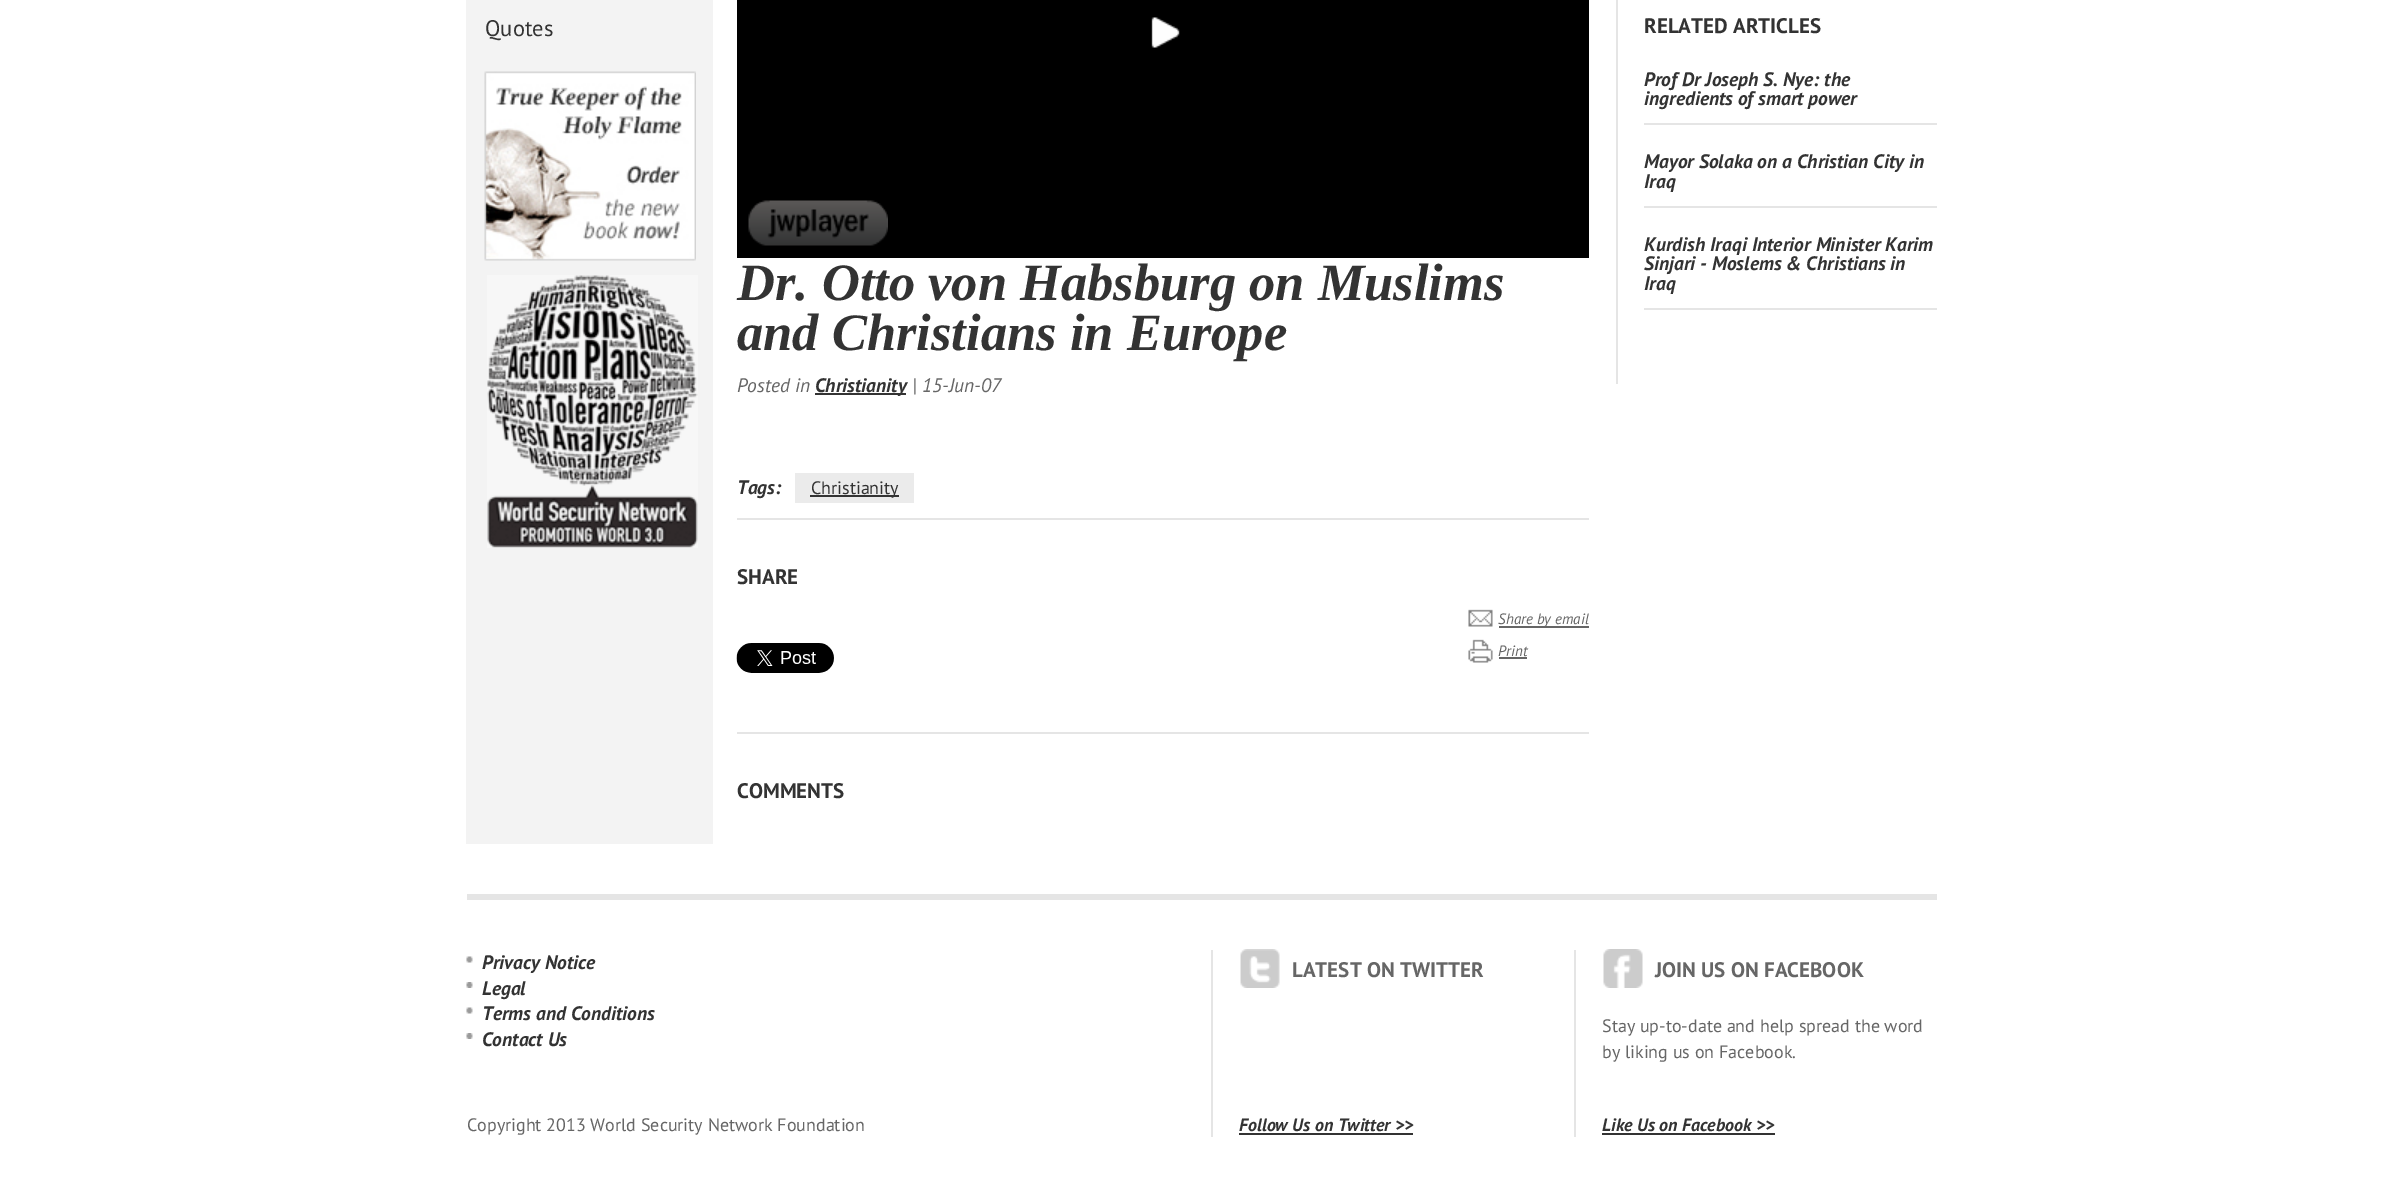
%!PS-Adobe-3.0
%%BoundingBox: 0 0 2402 1186
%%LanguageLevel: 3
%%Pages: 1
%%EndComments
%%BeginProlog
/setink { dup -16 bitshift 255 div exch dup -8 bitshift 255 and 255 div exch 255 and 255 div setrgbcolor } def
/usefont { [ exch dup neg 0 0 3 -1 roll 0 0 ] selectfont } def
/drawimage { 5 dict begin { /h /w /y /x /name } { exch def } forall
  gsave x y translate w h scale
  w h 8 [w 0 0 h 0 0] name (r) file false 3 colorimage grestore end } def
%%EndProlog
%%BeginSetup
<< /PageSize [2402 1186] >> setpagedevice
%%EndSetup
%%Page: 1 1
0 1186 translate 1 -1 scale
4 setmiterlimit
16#FFFFFF setink
0 0 2402 1186 rectfill
16#F3F3F3 setink
466 0 247 844 rectfill
/PTSans-Regular 22.5 usefont
16#333333 setink
485 36 moveto (Quotes) show
(img1.raw) 484 71 212 190 drawimage
(img2.raw) 487 275 211 273 drawimage
16#E5E5E5 setink
1616 0 2 384 rectfill
/PTSans-Bold 21 usefont
16#333333 setink
1644 33 moveto (RELATED ARTICLES) show
16#E5E5E5 setink
1644 123 293 2 rectfill
/PTSans-BoldItalic 19.5 usefont
16#333333 setink
1644 86 moveto (Prof Dr Joseph S. Nye: the) show
1644 105 moveto (ingredients of smart power) show
16#E5E5E5 setink
1644 206 293 2 rectfill
16#333333 setink
1644 168 moveto (Mayor Solaka on a Christian City in) show
1644 188 moveto (Iraq) show
16#E5E5E5 setink
1644 308 293 2 rectfill
16#333333 setink
[
    [(Kurdish Iraqi Interior Minister Karim) 1644 251]
    [(Sinjari - Moslems & Christians in) 1644 270]
    [(Iraq) 1644 290]
] { aload pop moveto show } forall
16#000000 setink
737 0 852 258 rectfill
(img3.raw) 1151 17 29 31 drawimage
(img4.raw) 748 200 140 46 drawimage
/Tinos-BoldItalic 52.5 usefont
16#333333 setink
737 300 moveto (Dr. Otto von Habsburg on Muslims) show
737 350 moveto (and Christians in Europe) show
/PTSans-Italic 19.5 usefont
16#666666 setink
737 392 moveto (Posted in) show
16#333333 setink
815 393 91 2 rectfill
/PTSans-BoldItalic 19.5 usefont
815 392 moveto (Christianity) show
/PTSans-Italic 19.5 usefont
16#666666 setink
912 392 moveto (| 15-Jun-07) show
16#E5E5E5 setink
737 518 852 2 rectfill
/PTSans-BoldItalic 19.5 usefont
16#333333 setink
737 494 moveto (Tags:) show
16#EBEBEB setink
795 473 119 30 rectfill
16#333333 setink
810 495 89 2 rectfill
/PTSans-Regular 18 usefont
811 494 moveto (Christianity) show
/PTSans-Bold 21 usefont
737 584 moveto (SHARE) show
16#E5E5E5 setink
737 732 852 2 rectfill
(img5.raw) 736 643 98 30 drawimage
(img6.raw) 1468 609 25 18 drawimage
16#666666 setink
1499 626 90 2 rectfill
/PTSans-Italic 15 usefont
1498 624 moveto (Share by email) show
(img7.raw) 1468 639 25 24 drawimage
1498 656 moveto (Print) show
1499 657 28 2 rectfill
/PTSans-Bold 21 usefont
16#333333 setink
737 798 moveto (COMMENTS) show
16#E5E5E5 setink
467 894 1470 6 rectfill
(img8.raw) 466 956 7 7 drawimage
/PTSans-BoldItalic 19.5 usefont
16#333333 setink
482 969 moveto (Privacy Notice) show
(img9.raw) 466 982 7 6 drawimage
482 995 moveto (Legal) show
(img8.raw) 466 1007 7 7 drawimage
482 1020 moveto (Terms and Conditions) show
(img9.raw) 466 1033 7 6 drawimage
482 1046 moveto (Contact Us) show
16#E5E5E5 setink
1211 950 2 187 rectfill
(img10.raw) 1240 949 40 39 drawimage
/PTSans-Bold 21 usefont
16#666666 setink
1292 977 moveto (LATEST ON TWITTER) show
/PTSans-BoldItalic 18 usefont
16#333333 setink
1239 1131 moveto (Follow Us on Twitter >>) show
1239 1133 174 2 rectfill
16#E5E5E5 setink
1574 950 2 187 rectfill
(img11.raw) 1603 949 40 39 drawimage
/PTSans-Bold 21 usefont
16#666666 setink
1655 977 moveto (JOIN US ON FACEBOOK) show
/PTSans-Regular 18 usefont
1602 1032 moveto (Stay up-to-date and help spread the word) show
1602 1058 moveto (by liking us on Facebook.) show
/PTSans-BoldItalic 18 usefont
16#333333 setink
1602 1131 moveto (Like Us on Facebook >>) show
1602 1133 173 2 rectfill
/PTSans-Regular 18 usefont
16#666666 setink
467 1131 moveto (Copyright 2013 World Security Network Foundation) show
showpage
%%EOF
